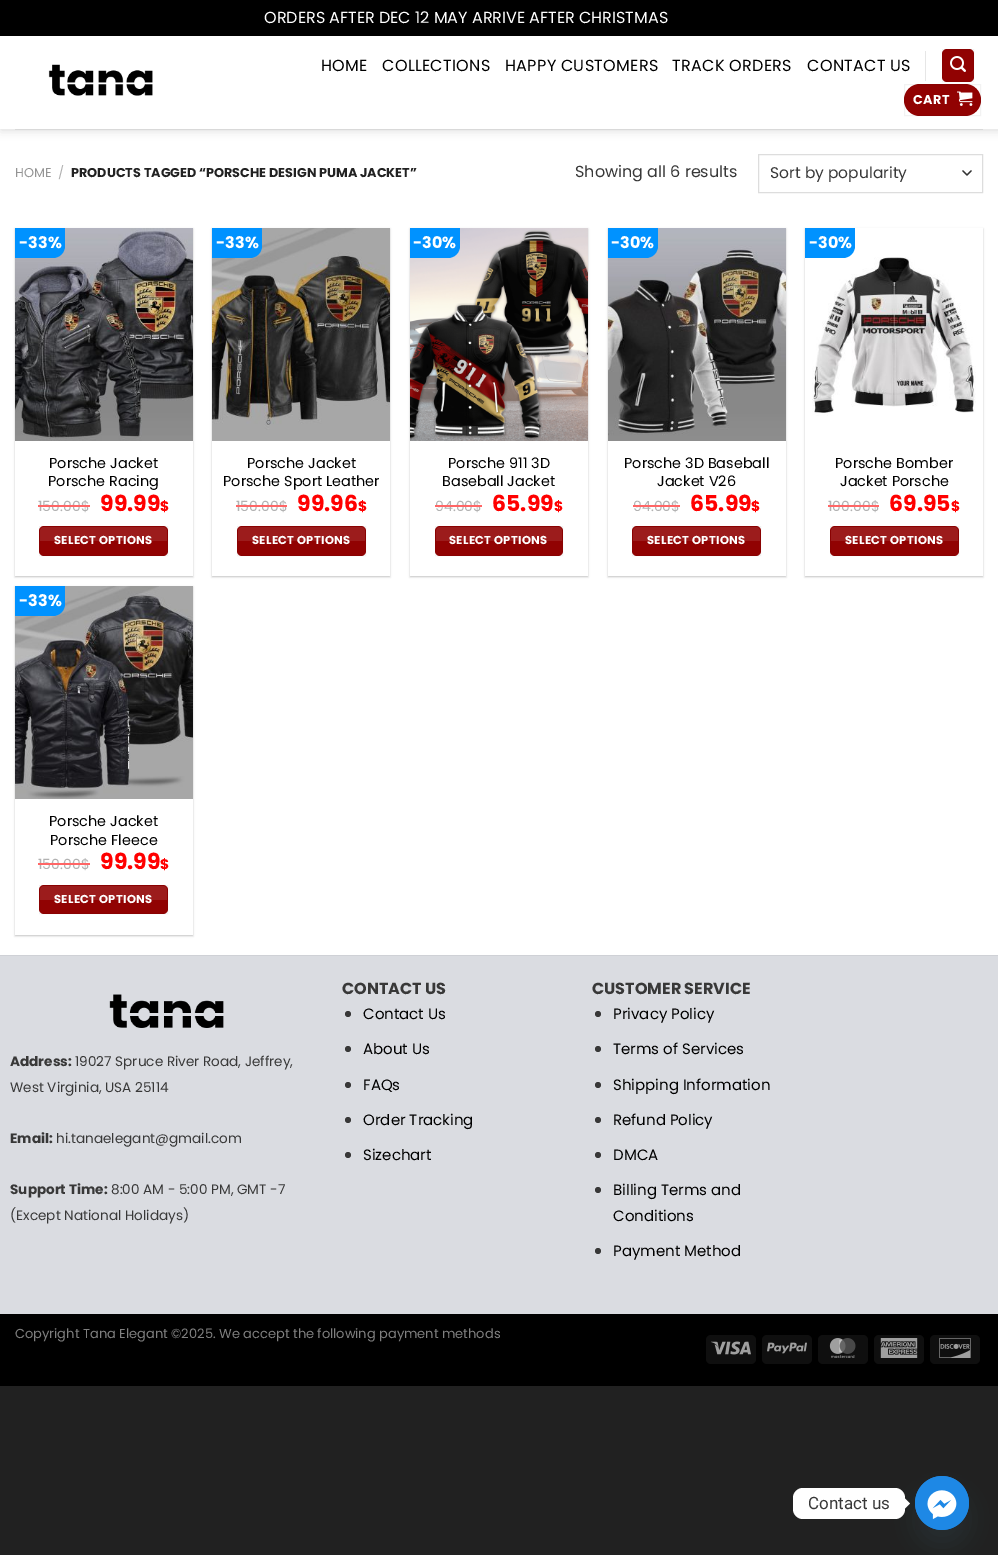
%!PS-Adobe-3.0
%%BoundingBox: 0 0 998 1555
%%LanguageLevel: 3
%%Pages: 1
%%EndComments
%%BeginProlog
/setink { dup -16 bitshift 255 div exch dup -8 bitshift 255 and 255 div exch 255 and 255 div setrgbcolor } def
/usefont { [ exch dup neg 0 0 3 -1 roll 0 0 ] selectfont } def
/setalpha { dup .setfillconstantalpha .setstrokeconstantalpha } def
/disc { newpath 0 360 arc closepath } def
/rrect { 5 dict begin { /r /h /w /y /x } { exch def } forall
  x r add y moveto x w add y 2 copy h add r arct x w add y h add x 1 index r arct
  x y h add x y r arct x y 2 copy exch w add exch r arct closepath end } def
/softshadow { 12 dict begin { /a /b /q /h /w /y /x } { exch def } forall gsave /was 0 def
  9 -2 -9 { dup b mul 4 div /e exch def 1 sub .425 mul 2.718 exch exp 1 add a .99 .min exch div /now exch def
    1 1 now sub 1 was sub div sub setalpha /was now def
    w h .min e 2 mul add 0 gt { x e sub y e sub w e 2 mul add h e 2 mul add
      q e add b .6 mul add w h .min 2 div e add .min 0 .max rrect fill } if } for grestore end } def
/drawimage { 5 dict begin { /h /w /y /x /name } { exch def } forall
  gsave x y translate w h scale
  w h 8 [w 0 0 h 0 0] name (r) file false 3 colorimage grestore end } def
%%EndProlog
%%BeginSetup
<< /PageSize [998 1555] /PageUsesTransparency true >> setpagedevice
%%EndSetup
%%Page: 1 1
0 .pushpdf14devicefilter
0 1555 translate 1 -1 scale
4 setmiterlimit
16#212121 setink
0 0 998 1555 rectfill
16#000000 setink
0 0 998 36 rectfill
/Poppins-Regular 16 usefont
16#FFFFFF setink
264 23 moveto (ORDERS AFTER DEC 12 MAY ARRIVE AFTER CHRISTMAS) show
0 36 998 919 rectfill
gsave
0 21 moveto 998 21 lineto 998 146 lineto 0 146 lineto closepath 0 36 moveto 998 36 lineto 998 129 lineto 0 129 lineto closepath eoclip newpath
16#000000 setink
1 37 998 93 0 5 0.15 softshadow
grestore
(img1.raw) 48 64 105 32 drawimage
16#000000 setink
321 71 moveto 0.3 0 (HOME) ashow
382 71 moveto 0.3 0 (COLLECTIONS) ashow
505 71 moveto 0.3 0 (HAPPY CUSTOMERS) ashow
672 71 moveto 0.3 0 (TRACK ORDERS) ashow
807 71 moveto 0.3 0 (CONTACT US) ashow
16#E6E6E6 setink
925 51 1 30 rectfill
16#910202 setink
942 49 32 33 5 rrect fill
0.05 setalpha
16#000000 setink
942.5 49.5 31 32 rectstroke
1 setalpha
(img2.raw) 950 56 16 16 drawimage
16#910202 setink
904 84 77 32 16 rrect fill
0.05 setalpha
16#000000 setink
904.5 84.5 76 31 rectstroke
/Poppins-Bold 12.8 usefont
1 setalpha
16#FFFFFF setink
913 104 moveto 0.5 0 (CART) ashow
(img3.raw) 957 91 16 15 drawimage
16#D9D9D9 setink
15 129 968 1 rectfill
/Poppins-Regular 12.8 usefont
16#949494 setink
15 177 moveto (HOME) show
16#B2B2B2 setink
58 177 moveto (/) show
/Poppins-Bold 12.8 usefont
16#222222 setink
71 177 moveto (PRODUCTS TAGGED “PORSCHE DESIGN PUMA JACKET”) show
/Poppins-Regular 16 usefont
16#383838 setink
575 177 moveto (Showing all 6 results) show
16#333333 setink
1.3 setlinewidth
1 setlinecap
1 setlinejoin
963 171 moveto 967 175 lineto 971 171 lineto stroke
16#DDDDDD setink
1 setlinewidth
0 setlinecap
0 setlinejoin
758.5 154.5 224 38 rectstroke
/Poppins-Regular 15.5 usefont
16#383838 setink
770 178 moveto (Sort by popularity) show
gsave
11 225 moveto 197 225 lineto 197 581 lineto 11 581 lineto closepath 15 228 moveto 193 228 lineto 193 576 lineto 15 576 lineto closepath eoclip newpath
16#000000 setink
15 229 178 348 0 1 0.24 softshadow
grestore
(img4.raw) 15 228 178 213 drawimage
16#0092FF setink
15 228 moveto 65 228 lineto 65 246 lineto 65 252.5 59.5 258 53 258 curveto 15 258 lineto closepath fill
/Poppins-Bold 16 usefont
16#FFFFFF setink
19 248 moveto (-33%) show
/Poppins-Regular 14.4 usefont
16#000000 setink
49 468 moveto (Porsche Jacket) show
48 486 moveto (Porsche Racing) show
/Poppins-Regular 14 usefont
16#B2B2B2 setink
38 511 moveto (150.00$) show
16#FF6666 setink
38 505 52 2 rectfill
/Poppins-Bold 22 usefont
16#FF0000 setink
100 511 moveto (99.99) show
/Poppins-Bold 14 usefont
160 511 moveto ($) show
16#910202 setink
39 526 129 30 5 rrect fill
0.05 setalpha
16#000000 setink
39.5 526.5 128 29 rectstroke
0.1 setalpha
16#FFFFFF setink
44 527 moveto 163 527 lineto 165 527 167 529 167 531 curveto 167 541 lineto 40 541 lineto 40 531 lineto 40 529 42 527 44 527 curveto closepath fill
/Poppins-Bold 11.5 usefont
1 setalpha
54 544 moveto 0.3 0 (SELECT OPTIONS) ashow
gsave
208 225 moveto 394 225 lineto 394 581 lineto 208 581 lineto closepath 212 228 moveto 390 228 lineto 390 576 lineto 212 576 lineto closepath eoclip newpath
16#000000 setink
212 229 178 348 0 1 0.24 softshadow
grestore
(img5.raw) 212 228 178 213 drawimage
16#0092FF setink
212 228 moveto 262 228 lineto 262 246 lineto 262 252.5 256.5 258 250 258 curveto 212 258 lineto closepath fill
/Poppins-Bold 16 usefont
16#FFFFFF setink
216 248 moveto (-33%) show
/Poppins-Regular 14.4 usefont
16#000000 setink
247 468 moveto (Porsche Jacket) show
223 486 moveto (Porsche Sport Leather) show
/Poppins-Regular 14 usefont
16#B2B2B2 setink
236 511 moveto (150.00$) show
16#FF6666 setink
236 505 51 2 rectfill
/Poppins-Bold 22 usefont
16#FF0000 setink
297 511 moveto (99.96) show
/Poppins-Bold 14 usefont
358 511 moveto ($) show
16#910202 setink
237 526 129 30 5 rrect fill
0.05 setalpha
16#000000 setink
237.5 526.5 128 29 rectstroke
0.1 setalpha
16#FFFFFF setink
242 527 moveto 361 527 lineto 363 527 365 529 365 531 curveto 365 541 lineto 238 541 lineto 238 531 lineto 238 529 240 527 242 527 curveto closepath fill
/Poppins-Bold 11.5 usefont
1 setalpha
252 544 moveto 0.3 0 (SELECT OPTIONS) ashow
gsave
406 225 moveto 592 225 lineto 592 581 lineto 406 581 lineto closepath 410 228 moveto 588 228 lineto 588 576 lineto 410 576 lineto closepath eoclip newpath
16#000000 setink
410 229 178 348 0 1 0.24 softshadow
grestore
(img6.raw) 410 228 178 213 drawimage
16#0092FF setink
410 228 moveto 460 228 lineto 460 246 lineto 460 252.5 454.5 258 448 258 curveto 410 258 lineto closepath fill
/Poppins-Bold 16 usefont
16#FFFFFF setink
413 248 moveto (-30%) show
/Poppins-Regular 14.4 usefont
16#000000 setink
448 468 moveto (Porsche 911 3D) show
442 486 moveto (Baseball Jacket) show
/Poppins-Regular 14 usefont
16#B2B2B2 setink
435 511 moveto (94.00$) show
16#FF6666 setink
435 505 47 2 rectfill
/Poppins-Bold 22 usefont
16#FF0000 setink
492 511 moveto (65.99) show
/Poppins-Bold 14 usefont
554 511 moveto ($) show
16#910202 setink
435 526 128 30 5 rrect fill
0.05 setalpha
16#000000 setink
435.5 526.5 127 29 rectstroke
0.1 setalpha
16#FFFFFF setink
440 527 moveto 558 527 lineto 560 527 562 529 562 531 curveto 562 541 lineto 436 541 lineto 436 531 lineto 436 529 438 527 440 527 curveto closepath fill
/Poppins-Bold 11.5 usefont
1 setalpha
449 544 moveto 0.3 0 (SELECT OPTIONS) ashow
gsave
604 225 moveto 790 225 lineto 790 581 lineto 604 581 lineto closepath 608 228 moveto 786 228 lineto 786 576 lineto 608 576 lineto closepath eoclip newpath
16#000000 setink
608 229 178 348 0 1 0.24 softshadow
grestore
(img7.raw) 608 228 178 213 drawimage
16#0092FF setink
608 228 moveto 658 228 lineto 658 246 lineto 658 252.5 652.5 258 646 258 curveto 608 258 lineto closepath fill
/Poppins-Bold 16 usefont
16#FFFFFF setink
611 248 moveto (-30%) show
/Poppins-Regular 14.4 usefont
16#000000 setink
624 468 moveto (Porsche 3D Baseball) show
657 486 moveto (Jacket V26) show
/Poppins-Regular 14 usefont
16#B2B2B2 setink
633 511 moveto (94.00$) show
16#FF6666 setink
633 505 47 2 rectfill
/Poppins-Bold 22 usefont
16#FF0000 setink
690 511 moveto (65.99) show
/Poppins-Bold 14 usefont
751 511 moveto ($) show
16#910202 setink
632 526 129 30 5 rrect fill
0.05 setalpha
16#000000 setink
632.5 526.5 128 29 rectstroke
0.1 setalpha
16#FFFFFF setink
637 527 moveto 756 527 lineto 758 527 760 529 760 531 curveto 760 541 lineto 633 541 lineto 633 531 lineto 633 529 635 527 637 527 curveto closepath fill
/Poppins-Bold 11.5 usefont
1 setalpha
647 544 moveto 0.3 0 (SELECT OPTIONS) ashow
gsave
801 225 moveto 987 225 lineto 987 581 lineto 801 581 lineto closepath 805 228 moveto 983 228 lineto 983 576 lineto 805 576 lineto closepath eoclip newpath
16#000000 setink
805 229 178 348 0 1 0.24 softshadow
grestore
(img8.raw) 812 257 164 159 drawimage
16#0092FF setink
805 228 moveto 855 228 lineto 855 246 lineto 855 252.5 849.5 258 843 258 curveto 805 258 lineto closepath fill
/Poppins-Bold 16 usefont
16#FFFFFF setink
809 248 moveto (-30%) show
/Poppins-Regular 14.4 usefont
16#000000 setink
835 468 moveto (Porsche Bomber) show
840 486 moveto (Jacket Porsche) show
/Poppins-Regular 14 usefont
16#B2B2B2 setink
828 511 moveto (100.00$) show
16#FF6666 setink
828 505 51 2 rectfill
/Poppins-Bold 22 usefont
16#FF0000 setink
889 511 moveto (69.95) show
/Poppins-Bold 14 usefont
951 511 moveto ($) show
16#910202 setink
830 526 129 30 5 rrect fill
0.05 setalpha
16#000000 setink
830.5 526.5 128 29 rectstroke
0.1 setalpha
16#FFFFFF setink
835 527 moveto 954 527 lineto 956 527 958 529 958 531 curveto 958 541 lineto 831 541 lineto 831 531 lineto 831 529 833 527 835 527 curveto closepath fill
/Poppins-Bold 11.5 usefont
1 setalpha
845 544 moveto 0.3 0 (SELECT OPTIONS) ashow
gsave
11 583 moveto 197 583 lineto 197 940 lineto 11 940 lineto closepath 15 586 moveto 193 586 lineto 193 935 lineto 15 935 lineto closepath eoclip newpath
16#000000 setink
15 587 178 349 0 1 0.24 softshadow
grestore
(img9.raw) 15 586 178 213 drawimage
16#0092FF setink
15 586 moveto 65 586 lineto 65 604 lineto 65 610.5 59.5 616 53 616 curveto 15 616 lineto closepath fill
/Poppins-Bold 16 usefont
16#FFFFFF setink
19 606 moveto (-33%) show
/Poppins-Regular 14.4 usefont
16#000000 setink
49 826 moveto (Porsche Jacket) show
50 845 moveto (Porsche Fleece) show
/Poppins-Regular 14 usefont
16#B2B2B2 setink
38 869 moveto (150.00$) show
16#FF6666 setink
38 863 52 2 rectfill
/Poppins-Bold 22 usefont
16#FF0000 setink
100 869 moveto (99.99) show
/Poppins-Bold 14 usefont
160 869 moveto ($) show
16#910202 setink
39 885 129 29 5 rrect fill
0.05 setalpha
16#000000 setink
39.5 885.5 128 28 rectstroke
0.1 setalpha
16#FFFFFF setink
44 886 moveto 163 886 lineto 165 886 167 888 167 890 curveto 167 900 lineto 40 900 lineto 40 890 lineto 40 888 42 886 44 886 curveto closepath fill
/Poppins-Bold 11.5 usefont
1 setalpha
54 903 moveto 0.3 0 (SELECT OPTIONS) ashow
16#DADCE1 setink
0 956 998 358 rectfill
16#CFD1D6 setink
0 955 998 1 rectfill
(img10.raw) 109 994 115 34 drawimage
/Poppins-Bold 13.6 usefont
16#383838 setink
10 1066 moveto (Address:) show
/Poppins-Regular 13.6 usefont
75 1066 moveto (19027 Spruce River Road, Jeffrey,) show
10 1092 moveto (West Virginia, USA 25114) show
/Poppins-Bold 13.6 usefont
10 1143 moveto (Email:) show
/Poppins-Regular 13.6 usefont
56 1143 moveto (hi.tanaelegant@gmail.com) show
/Poppins-Bold 13.6 usefont
10 1194 moveto (Support Time:) show
/Poppins-Regular 13.6 usefont
111 1194 moveto (8:00 AM - 5:00 PM, GMT -7) show
10 1220 moveto (\(Except National Holidays\)) show
/Poppins-Bold 16 usefont
342 994 moveto (CONTACT US) show
348 1014 3 disc fill
/Poppins-Regular 15 usefont
16#000000 setink
363 1019 moveto (Contact Us) show
16#383838 setink
348 1049 3 disc fill
16#000000 setink
363 1054 moveto (About Us) show
16#383838 setink
348 1085 3 disc fill
16#000000 setink
363 1090 moveto (FAQs) show
16#383838 setink
348 1120 3 disc fill
16#000000 setink
363 1125 moveto (Order Tracking) show
16#383838 setink
348 1155 3 disc fill
16#000000 setink
363 1160 moveto (Sizechart) show
/Poppins-Bold 16 usefont
16#383838 setink
592 994 moveto (CUSTOMER SERVICE) show
598 1014 3 disc fill
/Poppins-Regular 15 usefont
16#000000 setink
613 1019 moveto (Privacy Policy) show
16#383838 setink
598 1049 3 disc fill
16#000000 setink
613 1054 moveto (Terms of Services) show
16#383838 setink
598 1085 3 disc fill
16#000000 setink
613 1090 moveto (Shipping Information) show
16#383838 setink
598 1120 3 disc fill
16#000000 setink
613 1125 moveto (Refund Policy) show
16#383838 setink
598 1155 3 disc fill
16#000000 setink
613 1160 moveto (DMCA) show
16#383838 setink
598 1190 3 disc fill
16#000000 setink
613 1195 moveto (Billing Terms and) show
613 1221 moveto (Conditions) show
16#383838 setink
598 1251 3 disc fill
16#000000 setink
613 1256 moveto (Payment Method) show
0 1314 998 72 rectfill
/Poppins-Regular 13 usefont
16#808080 setink
15 1338 moveto (Copyright Tana Elegant ©2025. We accept the following payment methods) show
16#0F0F0F setink
706 1335 50 29 5 rrect fill
(img11.raw) 711 1341 40 14 drawimage
762 1335 50 29 5 rrect fill
(img12.raw) 767 1342 40 12 drawimage
818 1335 50 29 5 rrect fill
(img13.raw) 829 1338 27 20 drawimage
874 1335 50 29 5 rrect fill
(img14.raw) 880 1338 38 20 drawimage
930 1335 50 29 5 rrect fill
(img15.raw) 939 1338 32 20 drawimage
16#49687E setink
915 1492 54 54 27 12 0.16 softshadow
16#FFFFFF setink
793 1488 112 31 10 rrect fill
/Roboto-Regular 17 usefont
16#383838 setink
808 1509 moveto (Contact us) show
16#FFFFFF setink
905 1508.5 moveto 905 1498.5 lineto 910 1503.5 lineto closepath fill
(img16.raw) 915 1476 54 54 drawimage
.poppdf14devicefilter showpage
%%EOF
